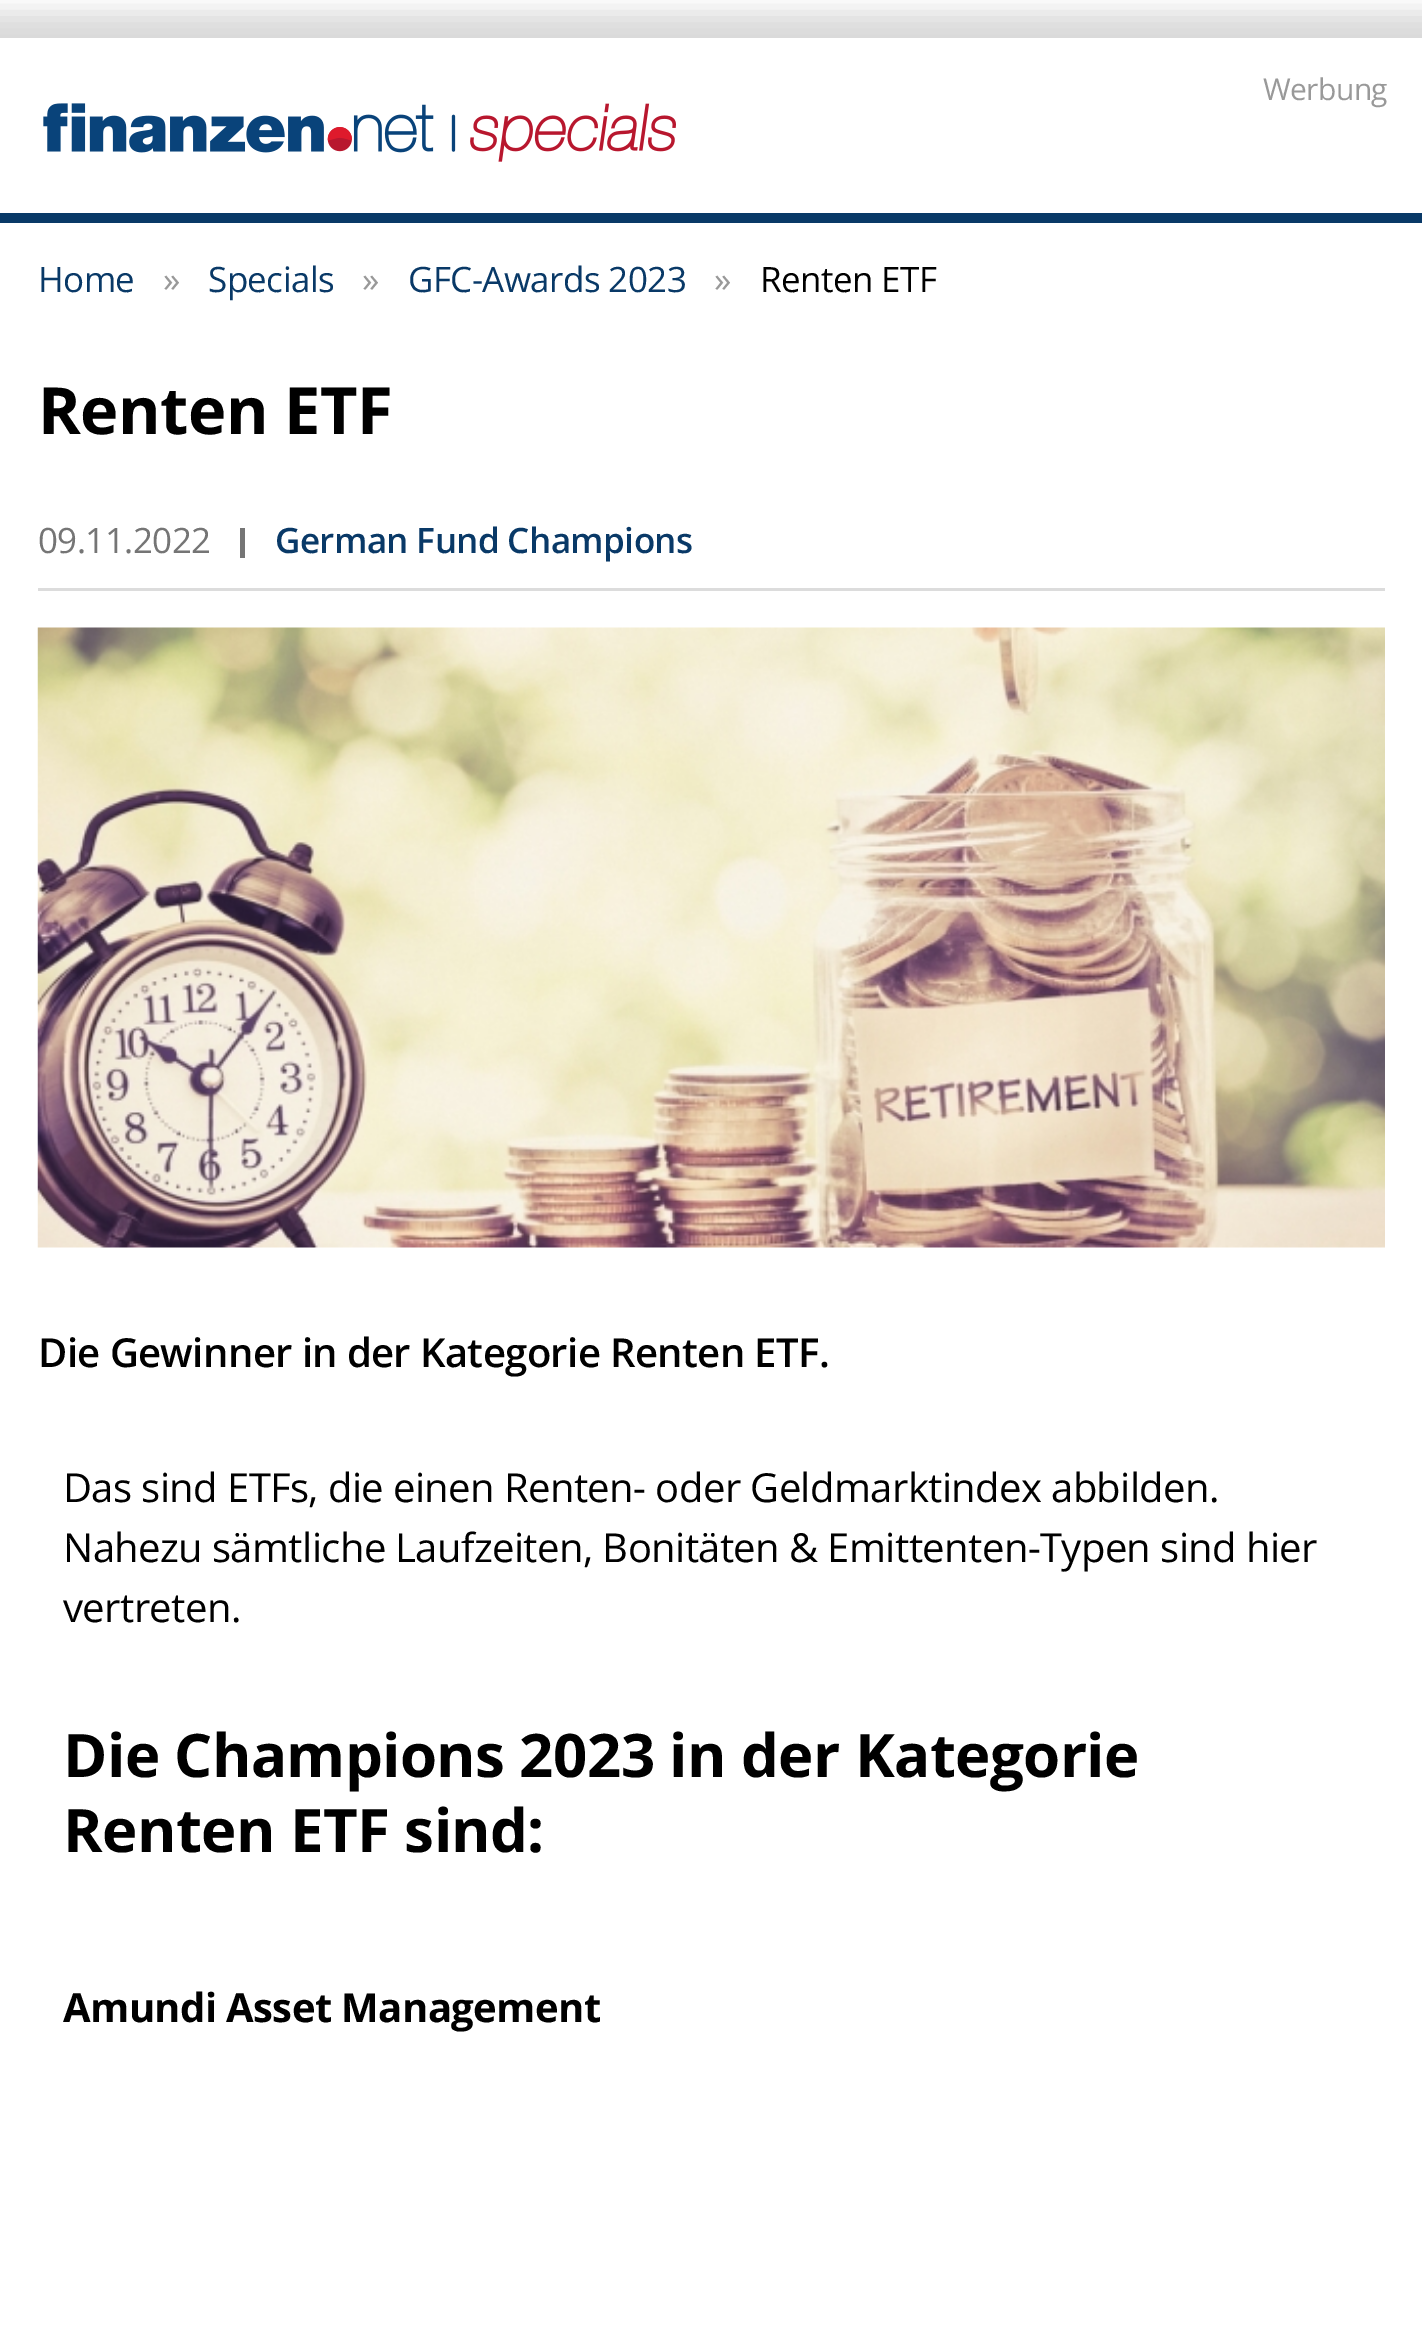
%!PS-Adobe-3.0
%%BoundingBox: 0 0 1422 2343
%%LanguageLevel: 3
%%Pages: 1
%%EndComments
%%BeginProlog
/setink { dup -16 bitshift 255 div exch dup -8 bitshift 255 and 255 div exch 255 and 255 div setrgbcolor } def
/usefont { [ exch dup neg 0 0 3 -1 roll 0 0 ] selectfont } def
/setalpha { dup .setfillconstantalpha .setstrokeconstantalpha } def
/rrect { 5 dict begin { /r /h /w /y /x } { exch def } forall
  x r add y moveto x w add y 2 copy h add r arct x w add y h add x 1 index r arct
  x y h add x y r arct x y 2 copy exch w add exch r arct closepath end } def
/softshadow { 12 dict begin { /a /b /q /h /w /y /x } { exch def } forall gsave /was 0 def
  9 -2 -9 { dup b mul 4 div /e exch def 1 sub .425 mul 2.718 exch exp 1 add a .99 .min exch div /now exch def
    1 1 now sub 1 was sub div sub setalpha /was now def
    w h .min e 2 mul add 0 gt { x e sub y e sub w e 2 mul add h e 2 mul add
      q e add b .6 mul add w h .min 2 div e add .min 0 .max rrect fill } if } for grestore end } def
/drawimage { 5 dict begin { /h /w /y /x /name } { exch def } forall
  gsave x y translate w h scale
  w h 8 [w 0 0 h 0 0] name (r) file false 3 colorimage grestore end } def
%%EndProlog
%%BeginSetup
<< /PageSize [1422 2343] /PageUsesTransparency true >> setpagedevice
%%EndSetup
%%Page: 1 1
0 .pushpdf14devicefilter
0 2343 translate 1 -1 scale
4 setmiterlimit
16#FFFFFF setink
0 0 1422 2343 rectfill
gsave
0 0 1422 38 rectclip
16#000000 setink
-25 13 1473 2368 0 12.5 0.15 softshadow
grestore
16#093967 setink
0 213 1422 10 rectfill
/OpenSans-Regular 30 usefont
16#999999 setink
1263 100 moveto -0.6 0 (Werbung) ashow
(img1.raw) 43 103 633 59 drawimage
/OpenSans-Regular 35 usefont
16#093967 setink
38 292 moveto -0.6 0 (Home) ashow
16#999999 setink
163 292 moveto -0.6 0 (») ashow
16#093967 setink
208 292 moveto -0.6 0 (Specials) ashow
16#999999 setink
362 292 moveto -0.6 0 (») ashow
16#093967 setink
408 292 moveto -0.6 0 (GFC-Awards 2023) ashow
16#999999 setink
714 292 moveto -0.6 0 (») ashow
16#000000 setink
760 292 moveto -0.6 0 (Renten ETF) ashow
/OpenSans-Bold 65 usefont
38 434 moveto -0.6 0 (Renten ETF) ashow
16#DCDCDC setink
38 588 1347 3 rectfill
/OpenSans-Regular 35 usefont
16#757575 setink
38 553 moveto -0.6 0 (09.11.2022) ashow
240 528 5 30 rectfill
/OpenSans-SemiBold 35 usefont
16#093967 setink
275 553 moveto -0.6 0 (German Fund Champions) ashow
(img2.raw) 37 627 1348 621 drawimage
/OpenSans-SemiBold 40 usefont
16#000000 setink
38 1367 moveto -0.6 0 (Die Gewinner in der Kategorie Renten ETF.) ashow
/OpenSans-Regular 40 usefont
63 1502 moveto -0.6 0 (Das sind ETFs, die einen Renten- oder Geldmarktindex abbilden.) ashow
63 1562 moveto -0.6 0 (Nahezu sämtliche Laufzeiten, Bonitäten & Emittenten-Typen sind hier) ashow
63 1622 moveto -0.6 0 (vertreten.) ashow
/OpenSans-Bold 60 usefont
63 1777 moveto -0.6 0 (Die Champions 2023 in der Kategorie) ashow
63 1852 moveto -0.6 0 (Renten ETF sind:) ashow
/OpenSans-Bold 40 usefont
63 2022 moveto -0.6 0 (Amundi Asset Management) ashow
.poppdf14devicefilter showpage
%%EOF
